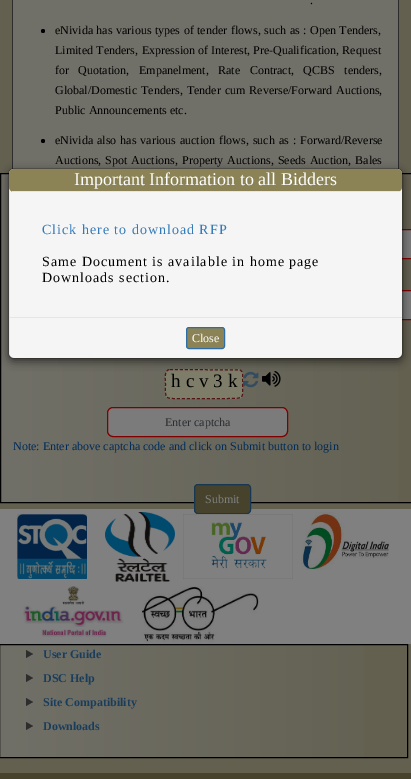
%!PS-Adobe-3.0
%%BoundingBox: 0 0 411 779
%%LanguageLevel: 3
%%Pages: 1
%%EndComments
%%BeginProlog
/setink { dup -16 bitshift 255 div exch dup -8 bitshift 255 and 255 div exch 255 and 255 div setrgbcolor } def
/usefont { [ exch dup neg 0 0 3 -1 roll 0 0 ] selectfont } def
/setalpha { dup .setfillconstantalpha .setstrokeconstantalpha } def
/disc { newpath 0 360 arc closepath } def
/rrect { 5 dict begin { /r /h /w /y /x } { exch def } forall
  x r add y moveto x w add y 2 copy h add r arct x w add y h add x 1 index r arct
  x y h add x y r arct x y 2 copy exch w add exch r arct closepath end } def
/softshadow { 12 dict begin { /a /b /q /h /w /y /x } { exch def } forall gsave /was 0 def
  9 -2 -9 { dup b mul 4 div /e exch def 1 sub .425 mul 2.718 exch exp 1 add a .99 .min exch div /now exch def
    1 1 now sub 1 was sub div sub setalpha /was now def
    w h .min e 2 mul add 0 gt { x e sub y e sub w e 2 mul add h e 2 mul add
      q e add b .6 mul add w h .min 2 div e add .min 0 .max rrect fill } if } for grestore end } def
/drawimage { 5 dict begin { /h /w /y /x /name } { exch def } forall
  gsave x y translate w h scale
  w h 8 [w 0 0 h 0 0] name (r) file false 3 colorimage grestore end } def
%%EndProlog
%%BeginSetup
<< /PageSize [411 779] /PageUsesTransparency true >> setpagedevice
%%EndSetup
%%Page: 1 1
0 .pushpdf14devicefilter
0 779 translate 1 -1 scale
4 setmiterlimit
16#636050 setink
0 0 411 779 rectfill
[
    [13 0 385 170 16#717068]
    [398 0 1 173 16#2D2D2D]
    [12 0 1 173 16#2D2D2D]
] { aload pop setink rectfill } forall
/LiberationSerif-Regular 12 usefont
16#000000 setink
310 4 moveto (.) show
43 31 2 disc fill
55 34 moveto 0.5 0 32 (eNivida has various types of tender) widthshow
231 34 moveto 0.5 0 32 (flows, such as : Open Tenders,) widthshow
55 54 moveto 0.5 0 32 (Limited Tenders, Expression of) widthshow
211 54 moveto (Interest, Pre-Qualification, Request) show
55 74 moveto 6.5 0 32 (for Quotation,) widthshow
139 74 moveto 6.5 0 32 (Empanelment, Rate Contract, QCBS tenders,) widthshow
55 94 moveto (Global/Domestic) show
141 94 moveto 1 0 32 (Tenders, Tender cum Reverse/Forward Auctions,) widthshow
55 114 moveto (Public Announcements etc.) show
43 141 2 disc fill
55 144 moveto 1 0 32 (eNivida also has various auction) widthshow
219 144 moveto 1 0 32 (flows, such as : Forward/Reverse) widthshow
55 164 moveto 1 0 32 (Auctions, Spot Auctions,) widthshow
182 164 moveto 1 0 32 (Property Auctions, Seeds Auction, Bales) widthshow
gsave 1 174 moveto 398 174 lineto 398 502 lineto 1 502 lineto closepath clip newpath
<< /ShadingType 2 /ColorSpace /DeviceRGB /Coords [1 338 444 338] /Extend [true true] /Function << /FunctionType 2 /Domain [0 1] /C0 [0.443 0.439 0.408] /C1 [0.388 0.376 0.314] /N 1 >> >> shfill grestore
0.5 173.5 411 329 rectstroke
16#7B7B7B setink
402 230 9 28 rectfill
16#800000 setink
28.5 229.5 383 29 rectstroke
16#7B7B7B setink
402 291 9 28 rectfill
16#800000 setink
28.5 290.5 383 29 rectstroke
16#7D7D69 setink
165 369 78 30 5 rrect fill
16#531515 setink
[3 2] 0 setdash
170 369.5 moveto 240 370 lineto 244 371.5 242.5 377.5 242.5 380.5 curveto 242.5 399 246 398.5 226.5 398.5 curveto 181.5 398.5 lineto 164 398.5 165.5 400 165.5 384 curveto 165.5 380 163.5 369.5 170 369.5 curveto closepath stroke
/LiberationSerif-Regular 19 usefont
16#000000 setink
171 387 moveto 5 0 (hcv3k) ashow
(img1.raw) 243 371 16 17 drawimage
(img2.raw) 262 370 19 17 drawimage
16#7B7B7B setink
107.5 407.5 180 29 5.5 rrect gsave fill grestore
16#800000 setink
[] 0 setdash
stroke
/LiberationSerif-Regular 12 usefont
16#2B2D2E setink
165 426 moveto (Enter captcha) show
16#002B5A setink
13 450 moveto (Note: Enter above captcha code and click on Submit button to login) show
16#808080 setink
0 509 411 135 rectfill
16#46422B setink
194.5 484.5 56 29 3.5 rrect gsave fill grestore
16#173752 setink
stroke
16#808080 setink
205 503 moveto (Submit) show
16#000000 setink
8 171 395 191 6 4.5 0.5 softshadow
16#F5F5F5 setink
9 169 393 189 5 rrect fill
0.2 setalpha
16#000000 setink
8.5 168.5 394 190 5.5 rrect stroke
1 setalpha
16#8B8355 setink
9 169 393 23 5 rrect fill
16#E5E5E5 setink
12 191 388 1 rectfill
/LiberationSerif-Regular 18 usefont
16#FFFFFF setink
74 185 moveto (Important Information to all Bidders) show
/LiberationSerif-Regular 14 usefont
16#337AB7 setink
42 234 moveto 1 0 (Click here to download RFP) ashow
16#000000 setink
42 266 moveto 1 0 (Same Document is available in home page) ashow
42 282 moveto 1 0 (Downloads section.) ashow
16#E5E5E5 setink
9 317 393 1 rectfill
16#8B8355 setink
186.5 327.5 38 21 2.5 rrect gsave fill grestore
16#2E6DA4 setink
stroke
/LiberationSerif-Regular 12 usefont
16#FFFFFF setink
192 342 moveto (Close) show
(img3.raw) 17 514 70 65 drawimage
(img4.raw) 105 512 70 70 drawimage
(img5.raw) 183 514 110 65 drawimage
(img6.raw) 301 512 88 58 drawimage
(img7.raw) 23 586 101 51 drawimage
(img8.raw) 141 586 118 57 drawimage
gsave 0 645 moveto 364 645 lineto 364 757 lineto 0 757 lineto closepath clip newpath
<< /ShadingType 2 /ColorSpace /DeviceRGB /Coords [-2 701 407 701] /Extend [true true] /Function << /FunctionType 2 /Domain [0 1] /C0 [0.443 0.439 0.408] /C1 [0.388 0.376 0.314] /N 1 >> >> shfill grestore
16#000000 setink
-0.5 644.5 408 113 rectstroke
16#2D2D2D setink
26 650 moveto 33 654 lineto 26 658 lineto closepath fill
/LiberationSerif-Bold 12 usefont
16#1A3D5C setink
43 658 moveto (User Guide) show
16#2D2D2D setink
26 674 moveto 33 678 lineto 26 682 lineto closepath fill
16#1A3D5C setink
43 682 moveto (DSC Help) show
16#2D2D2D setink
26 698 moveto 33 702 lineto 26 706 lineto closepath fill
16#1A3D5C setink
43 706 moveto (Site Compatibility) show
16#2D2D2D setink
26 722 moveto 33 726 lineto 26 730 lineto closepath fill
16#1A3D5C setink
43 730 moveto (Downloads) show
16#46422B setink
0 773 411 6 rectfill
.poppdf14devicefilter showpage
%%EOF
